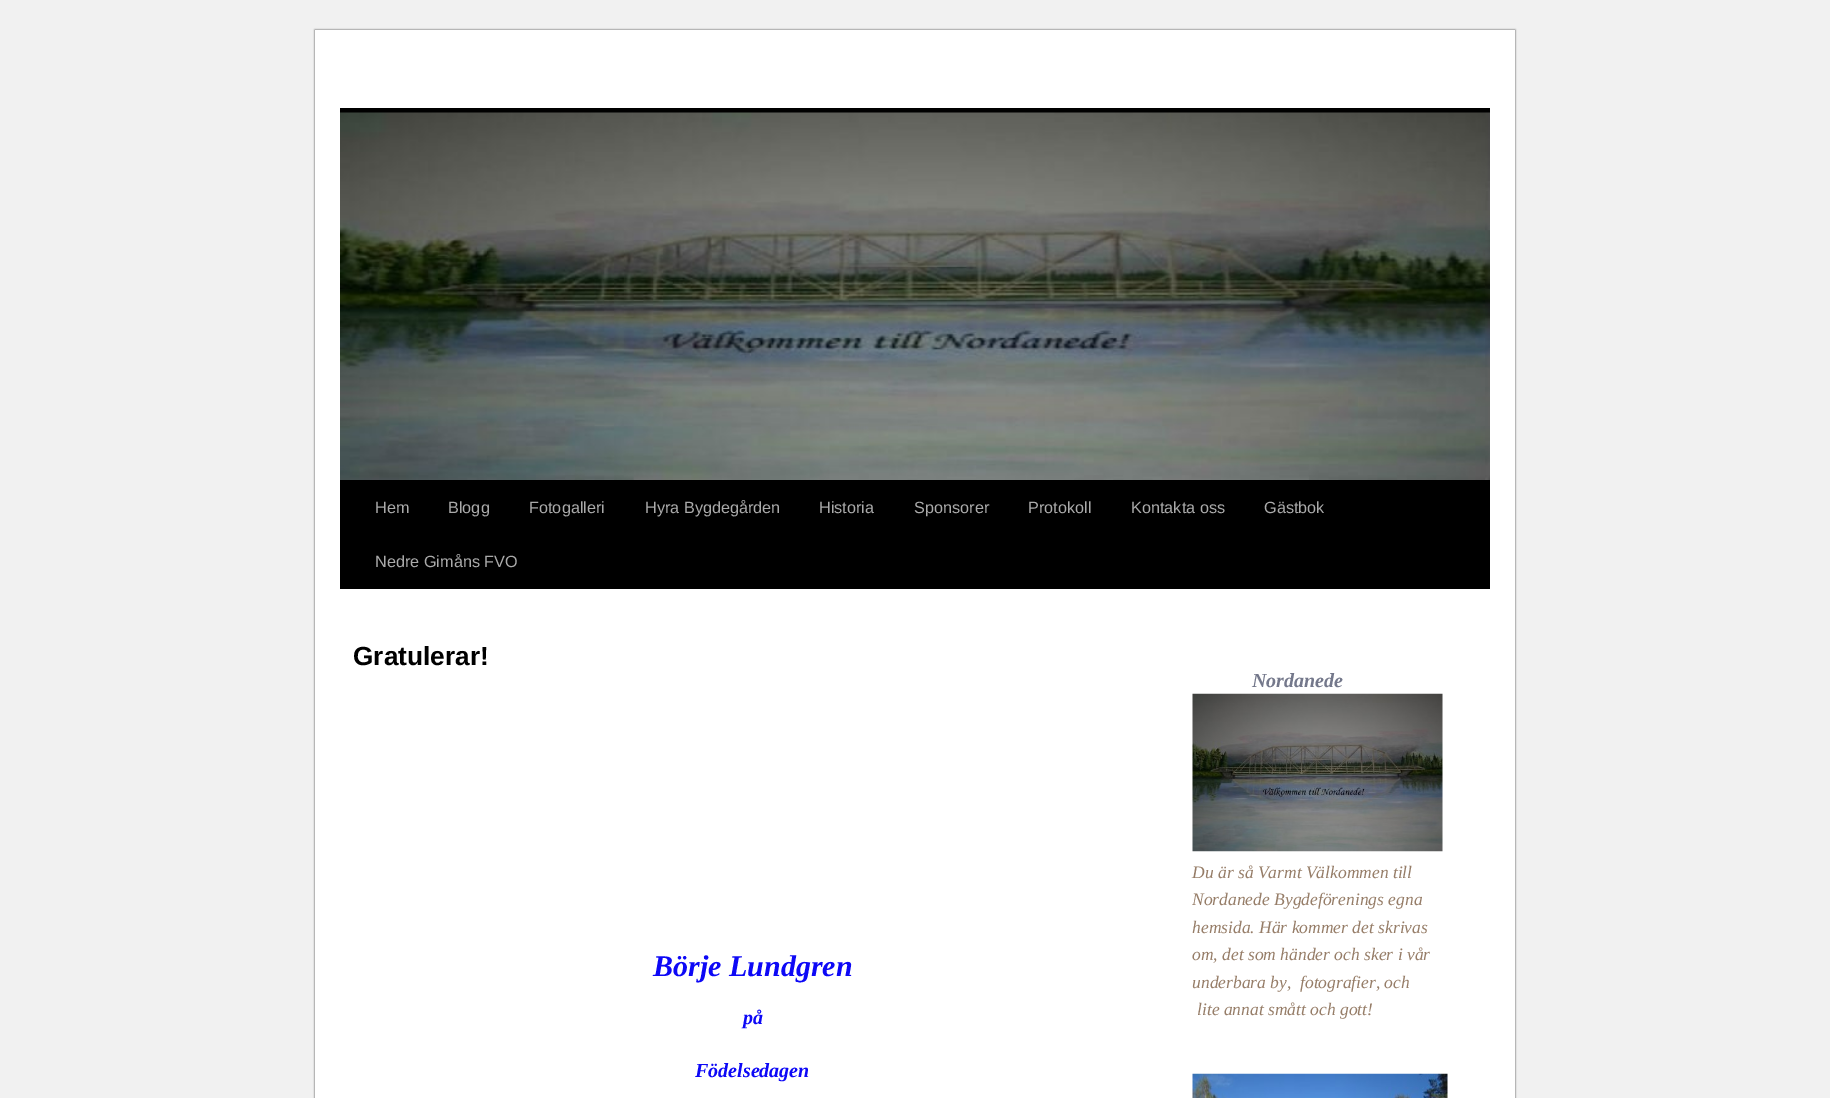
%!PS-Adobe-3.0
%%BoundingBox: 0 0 1830 1098
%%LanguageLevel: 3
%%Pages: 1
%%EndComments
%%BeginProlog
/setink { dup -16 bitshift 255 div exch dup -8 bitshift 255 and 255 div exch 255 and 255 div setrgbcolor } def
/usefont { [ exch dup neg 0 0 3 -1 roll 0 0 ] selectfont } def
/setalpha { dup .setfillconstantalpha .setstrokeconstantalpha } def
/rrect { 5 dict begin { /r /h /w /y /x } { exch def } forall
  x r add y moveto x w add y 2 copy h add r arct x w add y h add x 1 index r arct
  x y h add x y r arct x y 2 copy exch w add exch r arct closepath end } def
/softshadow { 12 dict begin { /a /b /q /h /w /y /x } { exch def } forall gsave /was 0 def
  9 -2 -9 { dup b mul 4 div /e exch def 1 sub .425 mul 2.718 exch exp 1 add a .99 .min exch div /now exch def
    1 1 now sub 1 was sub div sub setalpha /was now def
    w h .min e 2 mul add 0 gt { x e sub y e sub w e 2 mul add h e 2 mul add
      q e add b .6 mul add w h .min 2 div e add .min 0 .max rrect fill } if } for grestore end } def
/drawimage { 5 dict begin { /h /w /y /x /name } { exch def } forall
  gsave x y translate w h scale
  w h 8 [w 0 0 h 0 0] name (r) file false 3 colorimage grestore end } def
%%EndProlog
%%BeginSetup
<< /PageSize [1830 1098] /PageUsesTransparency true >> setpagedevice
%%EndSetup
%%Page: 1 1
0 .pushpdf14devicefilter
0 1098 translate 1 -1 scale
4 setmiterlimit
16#F1F1F1 setink
0 0 1830 1098 rectfill
16#333333 setink
315 30 1200 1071 0 1 1 softshadow
[
    [315 30 1200 1068 16#FFFFFF]
    [340 108 1150 5 16#000000]
    [340 480 1150 109 16#000000]
] { aload pop setink rectfill } forall
(img1.raw) 340 112 1150 368 drawimage
/LiberationSans-Regular 16.25 usefont
16#AAAAAA setink
[
    [(Hem) 375 513]
    [(Blogg) 448 513]
    [(Fotogalleri) 529 513]
    [(Hyra Bygdegården) 645 513]
    [(Historia) 819 513]
    [(Sponsorer) 914 513]
    [(Protokoll) 1028 513]
    [(Kontakta oss) 1131 513]
    [(Gästbok) 1264 513]
    [(Nedre Gimåns FVO) 375 567]
] { aload pop moveto show } forall
/LiberationSans-Bold 26.25 usefont
16#000000 setink
353 665 moveto (Gratulerar!) show
/LiberationSerif-BoldItalic 30 usefont
16#0D08F6 setink
653 976 moveto (Börje Lundgren) show
/LiberationSerif-BoldItalic 20 usefont
743 1024 moveto (på) show
695 1077 moveto (Födelsedagen) show
16#74788B setink
1252 687 moveto (Nordanede) show
(img2.raw) 1192 693 251 159 drawimage
/LiberationSerif-Italic 17.5 usefont
16#967D68 setink
[
    [(Du är så Varmt Välkommen till) 1192 878]
    [(Nordanede Bygdeförenings egna) 1192 905]
    [(hemsida. Här kommer det skrivas) 1192 933]
    [(om, det som händer och sker i vår) 1192 960]
    [(underbara by,  fotografier, och) 1192 988]
    [(lite annat smått och gott!) 1197 1015]
] { aload pop moveto show } forall
(img3.raw) 1192 1073 256 25 drawimage
.poppdf14devicefilter showpage
%%EOF
